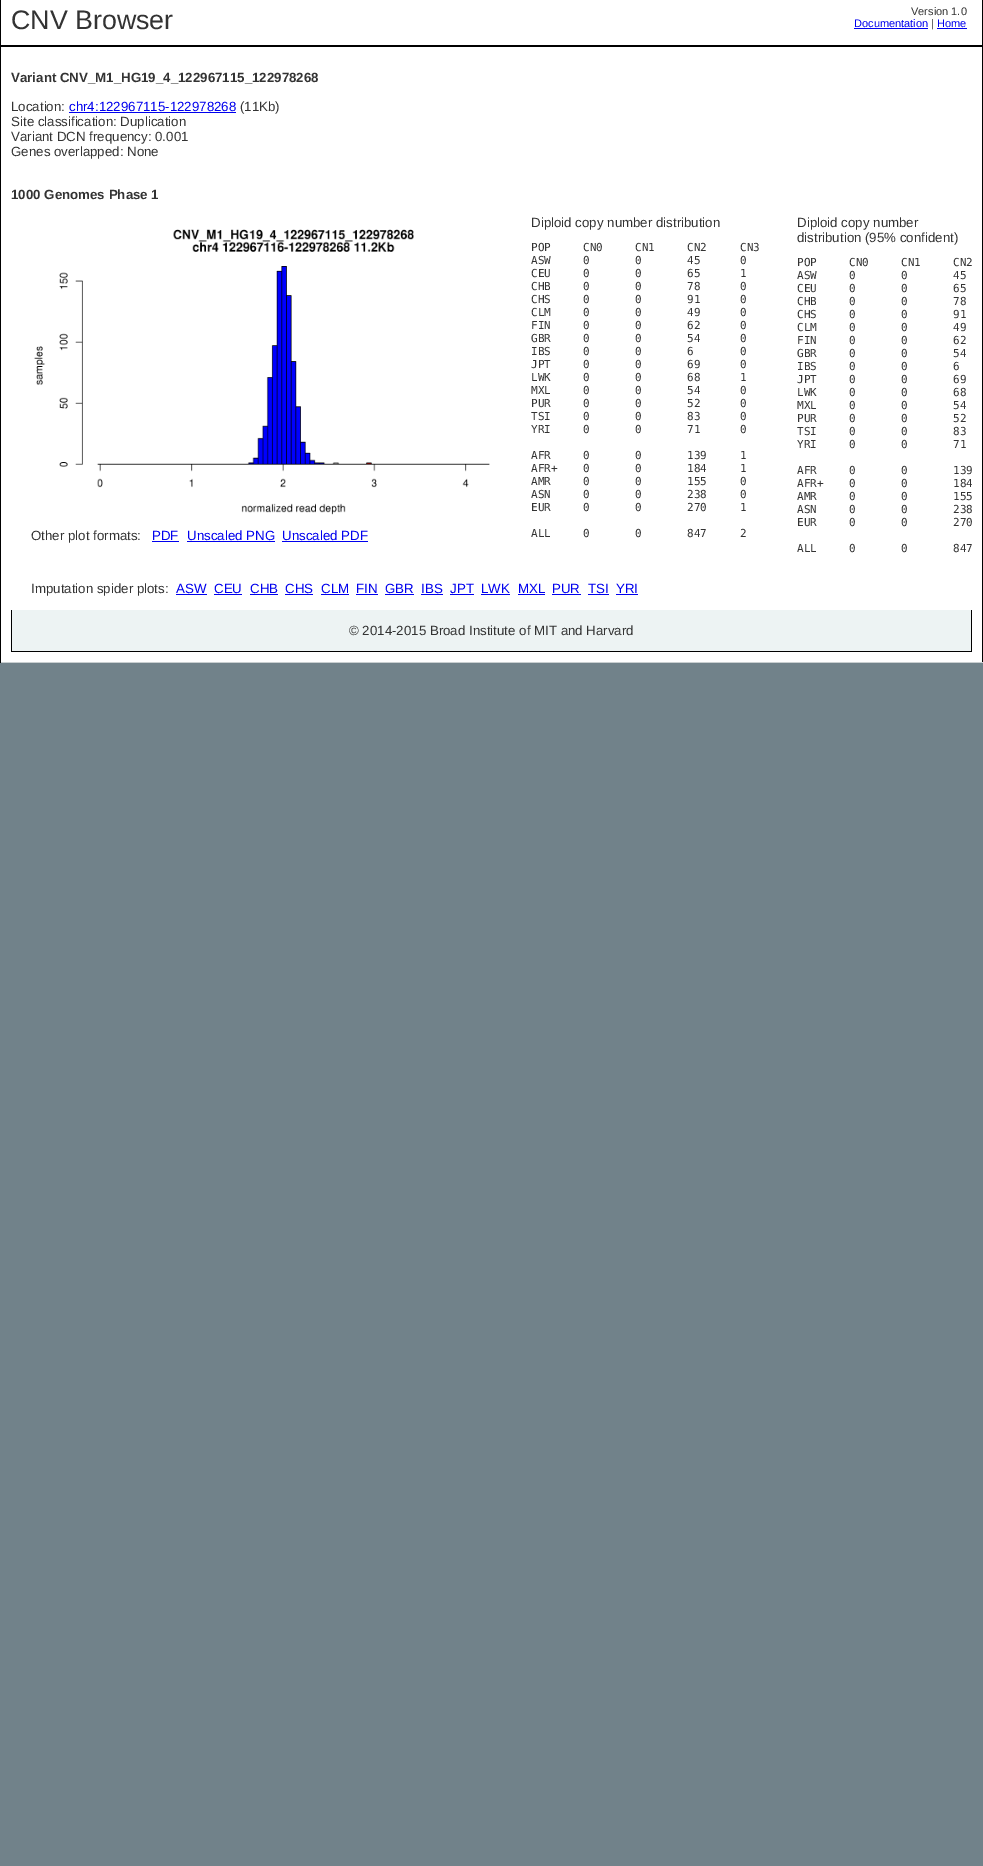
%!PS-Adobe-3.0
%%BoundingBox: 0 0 983 1866
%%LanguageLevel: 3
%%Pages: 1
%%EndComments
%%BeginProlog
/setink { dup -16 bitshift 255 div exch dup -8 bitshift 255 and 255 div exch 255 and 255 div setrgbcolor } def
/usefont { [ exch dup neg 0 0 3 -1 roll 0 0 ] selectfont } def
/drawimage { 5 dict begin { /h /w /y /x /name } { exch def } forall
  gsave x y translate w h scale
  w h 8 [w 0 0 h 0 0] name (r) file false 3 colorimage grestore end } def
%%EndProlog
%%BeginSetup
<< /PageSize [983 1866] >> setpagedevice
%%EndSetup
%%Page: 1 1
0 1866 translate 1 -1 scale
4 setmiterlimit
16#71828A setink
0 0 983 1866 rectfill
[
    [1 0 981 45 16#FFFFFF]
    [982 0 1 46 16#000000]
    [0 45 983 2 16#000000]
    [0 0 1 46 16#000000]
] { aload pop setink rectfill } forall
/LiberationSans-Regular 26.75 usefont
16#333333 setink
11 29 moveto (CNV Browser) show
/LiberationSans-Regular 11 usefont
911 15 moveto (Version 1.0) show
16#0000EE setink
854 27 moveto (Documentation) show
854 28 74 1 rectfill
16#333333 setink
931 27 moveto (|) show
16#0000EE setink
937 27 moveto (Home) show
[
    [937 28 30 1 16#0000EE]
    [1 47 981 615 16#FFFFFF]
    [982 46 1 617 16#000000]
    [0 662 983 1 16#C9CFD1]
    [0 46 1 617 16#000000]
] { aload pop setink rectfill } forall
/LiberationSans-Bold 13.3 usefont
16#333333 setink
11 82 moveto (Variant CNV_M1_HG19_4_122967115_122978268) show
/LiberationSans-Regular 13.3 usefont
11 111 moveto (Location:) show
16#0000EE setink
69 111 moveto (chr4:122967115-122978268) show
69 112 167 1 rectfill
16#333333 setink
[
    [(\(11Kb\)) 240 111]
    [(Site classification: Duplication) 11 126]
    [(Variant DCN frequency: 0.001) 11 141]
    [(Genes overlapped: None) 11 156]
] { aload pop moveto show } forall
/LiberationSans-Bold 13.3 usefont
11 199 moveto (1000 Genomes Phase 1) show
(img1.raw) 34 229 456 286 drawimage
/LiberationSans-Regular 13.3 usefont
31 540 moveto (Other plot formats:) show
16#0000EE setink
152 540 moveto (PDF) show
152 541 27 1 rectfill
187 540 moveto (Unscaled PNG) show
187 541 88 1 rectfill
282 540 moveto (Unscaled PDF) show
282 541 86 1 rectfill
16#333333 setink
531 227 moveto (Diploid copy number distribution) show
/DejaVuSansMono-Regular 11 usefont
[
    [(POP) 531 251]
    [(CN0) 583 251]
    [(CN1) 635 251]
    [(CN2) 687 251]
    [(CN3) 740 251]
    [(ASW) 531 264]
    [(0) 583 264]
    [(0) 635 264]
    [(45) 687 264]
    [(0) 740 264]
    [(CEU) 531 277]
    [(0) 583 277]
    [(0) 635 277]
    [(65) 687 277]
    [(1) 740 277]
    [(CHB) 531 290]
    [(0) 583 290]
    [(0) 635 290]
    [(78) 687 290]
    [(0) 740 290]
    [(CHS) 531 303]
    [(0) 583 303]
    [(0) 635 303]
    [(91) 687 303]
    [(0) 740 303]
    [(CLM) 531 316]
    [(0) 583 316]
    [(0) 635 316]
    [(49) 687 316]
    [(0) 740 316]
    [(FIN) 531 329]
    [(0) 583 329]
    [(0) 635 329]
    [(62) 687 329]
    [(0) 740 329]
    [(GBR) 531 342]
    [(0) 583 342]
    [(0) 635 342]
    [(54) 687 342]
    [(0) 740 342]
    [(IBS) 531 355]
    [(0) 583 355]
    [(0) 635 355]
    [(6) 687 355]
    [(0) 740 355]
    [(JPT) 531 368]
    [(0) 583 368]
    [(0) 635 368]
    [(69) 687 368]
    [(0) 740 368]
    [(LWK) 531 381]
    [(0) 583 381]
    [(0) 635 381]
    [(68) 687 381]
    [(1) 740 381]
    [(MXL) 531 394]
    [(0) 583 394]
    [(0) 635 394]
    [(54) 687 394]
    [(0) 740 394]
    [(PUR) 531 407]
    [(0) 583 407]
    [(0) 635 407]
    [(52) 687 407]
    [(0) 740 407]
    [(TSI) 531 420]
    [(0) 583 420]
    [(0) 635 420]
    [(83) 687 420]
    [(0) 740 420]
    [(YRI) 531 433]
    [(0) 583 433]
    [(0) 635 433]
    [(71) 687 433]
    [(0) 740 433]
    [(AFR) 531 459]
    [(0) 583 459]
    [(0) 635 459]
    [(139) 687 459]
    [(1) 740 459]
    [(AFR+) 531 472]
    [(0) 583 472]
    [(0) 635 472]
    [(184) 687 472]
    [(1) 740 472]
    [(AMR) 531 485]
    [(0) 583 485]
    [(0) 635 485]
    [(155) 687 485]
    [(0) 740 485]
    [(ASN) 531 498]
    [(0) 583 498]
    [(0) 635 498]
    [(238) 687 498]
    [(0) 740 498]
    [(EUR) 531 511]
    [(0) 583 511]
    [(0) 635 511]
    [(270) 687 511]
    [(1) 740 511]
    [(ALL) 531 537]
    [(0) 583 537]
    [(0) 635 537]
    [(847) 687 537]
    [(2) 740 537]
] { aload pop moveto show } forall
/LiberationSans-Regular 13.3 usefont
797 227 moveto (Diploid copy number) show
797 242 moveto (distribution \(95% confident\)) show
/DejaVuSansMono-Regular 11 usefont
[
    [(POP) 797 266]
    [(CN0) 849 266]
    [(CN1) 901 266]
    [(CN2) 953 266]
    [(ASW) 797 279]
    [(0) 849 279]
    [(0) 901 279]
    [(45) 953 279]
    [(CEU) 797 292]
    [(0) 849 292]
    [(0) 901 292]
    [(65) 953 292]
    [(CHB) 797 305]
    [(0) 849 305]
    [(0) 901 305]
    [(78) 953 305]
    [(CHS) 797 318]
    [(0) 849 318]
    [(0) 901 318]
    [(91) 953 318]
    [(CLM) 797 331]
    [(0) 849 331]
    [(0) 901 331]
    [(49) 953 331]
    [(FIN) 797 344]
    [(0) 849 344]
    [(0) 901 344]
    [(62) 953 344]
    [(GBR) 797 357]
    [(0) 849 357]
    [(0) 901 357]
    [(54) 953 357]
    [(IBS) 797 370]
    [(0) 849 370]
    [(0) 901 370]
    [(6) 953 370]
    [(JPT) 797 383]
    [(0) 849 383]
    [(0) 901 383]
    [(69) 953 383]
    [(LWK) 797 396]
    [(0) 849 396]
    [(0) 901 396]
    [(68) 953 396]
    [(MXL) 797 409]
    [(0) 849 409]
    [(0) 901 409]
    [(54) 953 409]
    [(PUR) 797 422]
    [(0) 849 422]
    [(0) 901 422]
    [(52) 953 422]
    [(TSI) 797 435]
    [(0) 849 435]
    [(0) 901 435]
    [(83) 953 435]
    [(YRI) 797 448]
    [(0) 849 448]
    [(0) 901 448]
    [(71) 953 448]
    [(AFR) 797 474]
    [(0) 849 474]
    [(0) 901 474]
    [(139) 953 474]
    [(AFR+) 797 487]
    [(0) 849 487]
    [(0) 901 487]
    [(184) 953 487]
    [(AMR) 797 500]
    [(0) 849 500]
    [(0) 901 500]
    [(155) 953 500]
    [(ASN) 797 513]
    [(0) 849 513]
    [(0) 901 513]
    [(238) 953 513]
    [(EUR) 797 526]
    [(0) 849 526]
    [(0) 901 526]
    [(270) 953 526]
    [(ALL) 797 552]
    [(0) 849 552]
    [(0) 901 552]
    [(847) 953 552]
] { aload pop moveto show } forall
/LiberationSans-Regular 13.3 usefont
31 593 moveto (Imputation spider plots:) show
16#0000EE setink
176 593 moveto (ASW) show
176 594 31 1 rectfill
214 593 moveto (CEU) show
214 594 28 1 rectfill
250 593 moveto (CHB) show
250 594 28 1 rectfill
285 593 moveto (CHS) show
285 594 28 1 rectfill
321 593 moveto (CLM) show
321 594 28 1 rectfill
356 593 moveto (FIN) show
356 594 22 1 rectfill
385 593 moveto (GBR) show
385 594 29 1 rectfill
421 593 moveto (IBS) show
421 594 22 1 rectfill
450 593 moveto (JPT) show
450 594 24 1 rectfill
481 593 moveto (LWK) show
481 594 29 1 rectfill
518 593 moveto (MXL) show
518 594 27 1 rectfill
552 593 moveto (PUR) show
552 594 29 1 rectfill
588 593 moveto (TSI) show
588 594 21 1 rectfill
616 593 moveto (YRI) show
[
    [616 594 22 1 16#0000EE]
    [12 610 959 41 16#EDF3F3]
    [971 610 1 42 16#000000]
    [11 651 961 1 16#000000]
    [11 610 1 42 16#000000]
] { aload pop setink rectfill } forall
16#333333 setink
349 635 moveto (© 2014-2015 Broad Institute of MIT and Harvard) show
showpage
%%EOF
